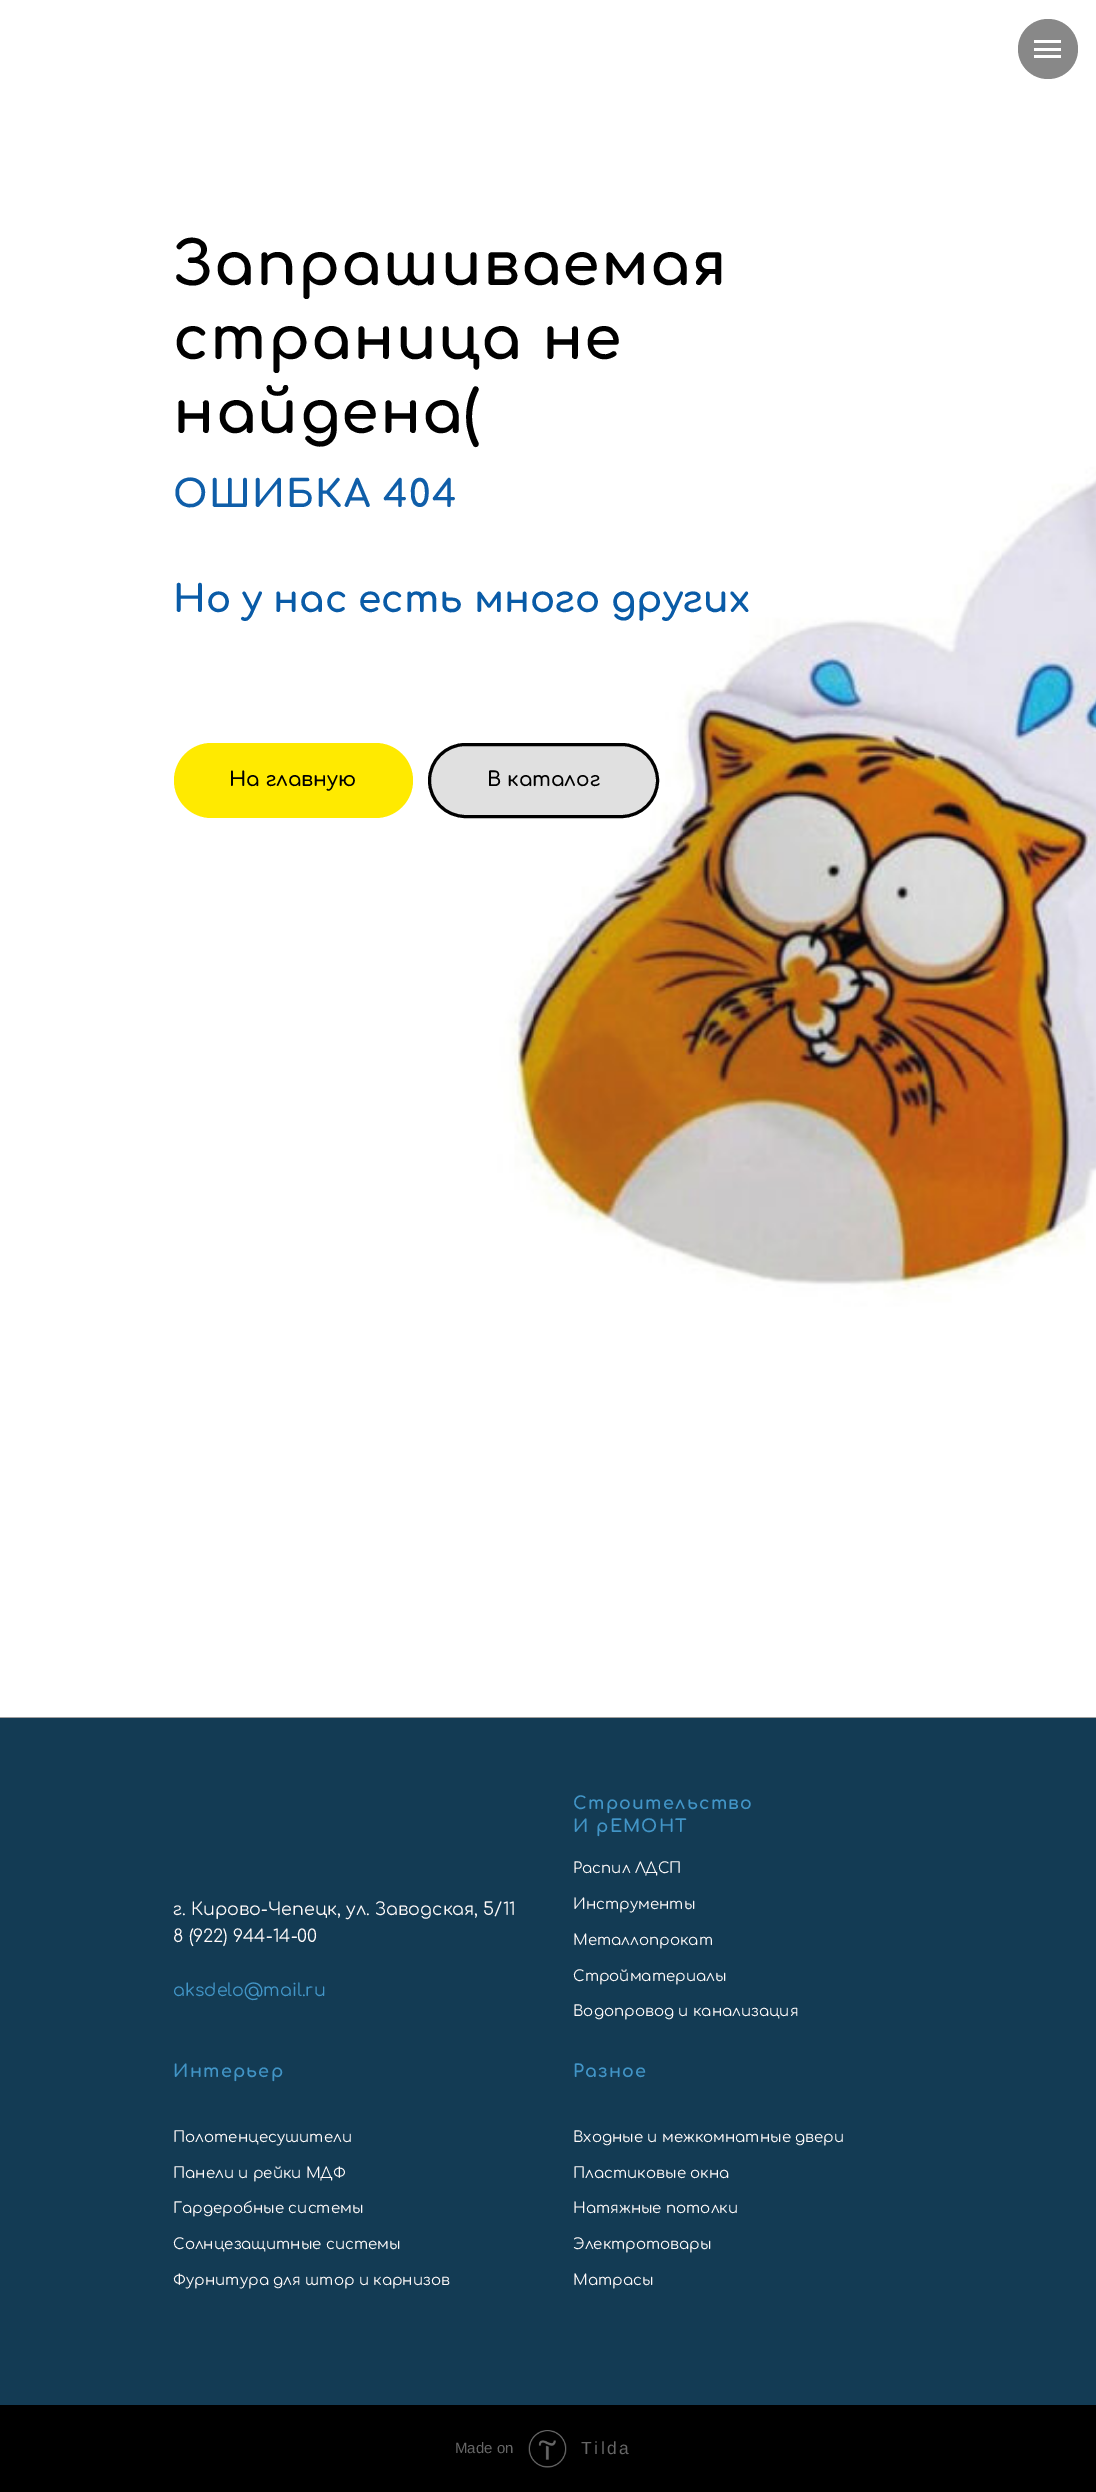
%!PS-Adobe-3.0
%%BoundingBox: 0 0 1096 2492
%%LanguageLevel: 3
%%Pages: 1
%%EndComments
%%BeginProlog
/setink { dup -16 bitshift 255 div exch dup -8 bitshift 255 and 255 div exch 255 and 255 div setrgbcolor } def
/usefont { [ exch dup neg 0 0 3 -1 roll 0 0 ] selectfont } def
/disc { newpath 0 360 arc closepath } def
/rrect { 5 dict begin { /r /h /w /y /x } { exch def } forall
  x r add y moveto x w add y 2 copy h add r arct x w add y h add x 1 index r arct
  x y h add x y r arct x y 2 copy exch w add exch r arct closepath end } def
/drawimage { 5 dict begin { /h /w /y /x /name } { exch def } forall
  gsave x y translate w h scale
  w h 8 [w 0 0 h 0 0] name (r) file false 3 colorimage grestore end } def
%%EndProlog
%%BeginSetup
<< /PageSize [1096 2492] >> setpagedevice
%%EndSetup
%%Page: 1 1
0 2492 translate 1 -1 scale
4 setmiterlimit
16#133B54 setink
0 0 1096 2492 rectfill
16#000000 setink
0 1717 1096 1 rectfill
(img1.raw) 0 1717 1096 1 drawimage
(img2.raw) 0 0 1096 1718 drawimage
16#888888 setink
1048 49 30 disc fill
[
    [1034 40 27 3 16#FFFFFF]
    [1034 48 27 3 16#FFFFFF]
    [1034 55 27 3 16#FFFFFF]
] { aload pop setink rectfill } forall
/Comfortaa-Bold 60 usefont
16#000000 setink
173 285 moveto 1.25 0 (Запрашиваемая) ashow
173 359 moveto 1.25 0 (страница не) ashow
173 433 moveto 1.25 0 (найдена\() ashow
/Comfortaa-Bold 37.5 usefont
16#0F5EA9 setink
173 507 moveto 1.25 0 (ОШИБКА 404) ashow
16#095BA7 setink
173 612 moveto (Но у нас есть много других) show
16#FFEA00 setink
174 743 239 75 37.5 rrect fill
/Comfortaa-SemiBold 20 usefont
16#000000 setink
229 786 moveto (На главную) show
16#E0E0E0 setink
429.5 744.5 228 72 36 rrect gsave fill grestore
16#000000 setink
3 setlinewidth
stroke
487 786 moveto (В каталог) show
/Comfortaa-Regular 17.5 usefont
16#FFFAFA setink
[
    [(г. Кирово-Чепецк, ул.) 173 1915]
    [(Заводская, 5/11) 375 1915]
    [(8 \(922\) 944-14-00) 173 1942]
] { aload pop moveto show } forall
16#4295C7 setink
173 1996 moveto (aksdelo@mail.ru) show
/Comfortaa-Bold 17.5 usefont
573 1809 moveto 1.25 0 (Строительство) ashow
573 1832 moveto 1.25 0 (И рЕМОНТ) ashow
/Comfortaa-Regular 15 usefont
16#FFFAFA setink
[
    [(Распил ЛДСП) 573 1873]
    [(Инструменты) 573 1909]
    [(Металлопрокат) 573 1945]
    [(Стройматериалы) 573 1981]
    [(Водопровод и канализация) 573 2016]
] { aload pop moveto show } forall
/Comfortaa-Bold 17.5 usefont
16#4295C7 setink
173 2077 moveto 1.25 0 (Интерьер) ashow
/Comfortaa-Regular 15 usefont
16#FFFAFA setink
[
    [(Полотенцесушители) 173 2142]
    [(Панели и рейки МДФ) 173 2178]
    [(Гардеробные системы) 173 2213]
    [(Солнцезащитные системы) 173 2249]
    [(Фурнитура для штор и карнизов) 173 2285]
] { aload pop moveto show } forall
/Comfortaa-Bold 17.5 usefont
16#4295C7 setink
573 2077 moveto 1.25 0 (Разное) ashow
/Comfortaa-Regular 15 usefont
16#FFFAFA setink
[
    [(Входные и межкомнатные двери) 573 2142]
    [(Пластиковые окна) 573 2178]
    [(Натяжные потолки) 573 2213]
    [(Электротовары) 573 2249]
    [(Матрасы) 573 2285]
] { aload pop moveto show } forall
16#000000 setink
0 2405 1096 87 rectfill
/LiberationSans-Regular 15 usefont
16#666666 setink
455 2453 moveto (Made on) show
(img3.raw) 528 2430 39 38 drawimage
/LiberationSans-Regular 17.5 usefont
581 2454 moveto 2.5 0 (Tilda) ashow
showpage
%%EOF
